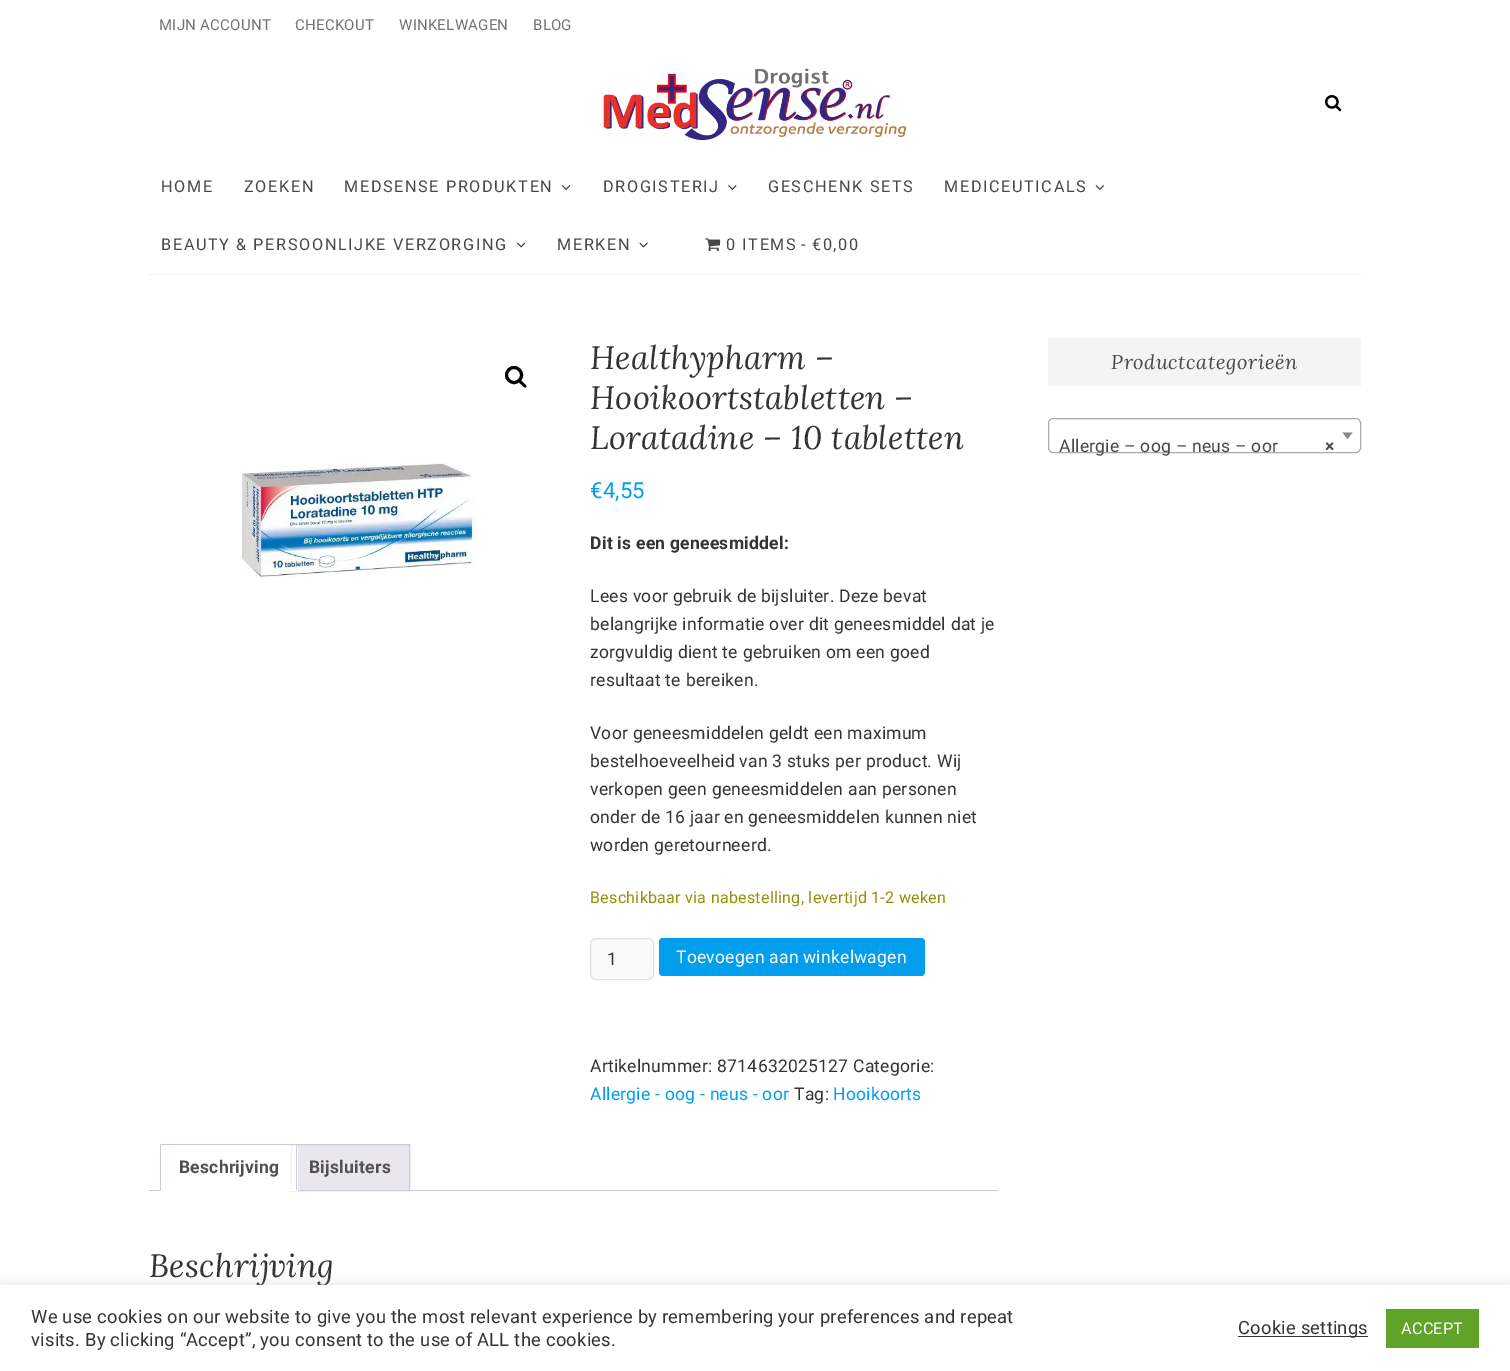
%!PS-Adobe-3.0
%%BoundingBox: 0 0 1510 1371
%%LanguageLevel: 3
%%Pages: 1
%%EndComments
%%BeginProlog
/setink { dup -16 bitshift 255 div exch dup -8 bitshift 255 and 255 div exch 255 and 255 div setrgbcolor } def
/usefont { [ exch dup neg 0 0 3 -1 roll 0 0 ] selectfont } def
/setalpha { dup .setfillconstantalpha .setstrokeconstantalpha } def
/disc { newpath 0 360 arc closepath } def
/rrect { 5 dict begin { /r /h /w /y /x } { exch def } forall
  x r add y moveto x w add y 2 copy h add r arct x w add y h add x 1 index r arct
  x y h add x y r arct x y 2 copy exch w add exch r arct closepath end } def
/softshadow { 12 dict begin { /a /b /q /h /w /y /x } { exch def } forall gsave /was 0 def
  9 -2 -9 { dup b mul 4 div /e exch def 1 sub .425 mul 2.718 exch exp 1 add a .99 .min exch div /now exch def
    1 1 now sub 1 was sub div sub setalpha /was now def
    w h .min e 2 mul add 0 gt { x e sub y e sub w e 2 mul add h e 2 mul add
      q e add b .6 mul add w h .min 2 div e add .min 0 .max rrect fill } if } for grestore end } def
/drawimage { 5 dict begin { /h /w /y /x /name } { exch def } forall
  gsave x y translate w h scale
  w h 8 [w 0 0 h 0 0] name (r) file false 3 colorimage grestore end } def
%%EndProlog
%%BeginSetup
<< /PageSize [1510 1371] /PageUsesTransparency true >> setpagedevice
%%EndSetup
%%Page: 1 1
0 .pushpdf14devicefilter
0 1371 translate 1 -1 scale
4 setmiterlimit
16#FFFFFF setink
0 0 1510 1371 rectfill
/Roboto-Regular 15 usefont
16#747474 setink
159 30 moveto 0.25 0 (MIJN ACCOUNT) ashow
295 30 moveto 0.25 0 (CHECKOUT) ashow
399 30 moveto 0.25 0 (WINKELWAGEN) ashow
533 30 moveto 0.25 0 (BLOG) ashow
(img1.raw) 603 68 304 72 drawimage
(img2.raw) 1325 95 17 17 drawimage
16#F2F2F2 setink
149 274 1212 1 rectfill
/Roboto-Regular 16.25 usefont
16#484848 setink
161 192 moveto 1.6 0 (HOME) ashow
244 192 moveto 1.6 0 (ZOEKEN) ashow
344 192 moveto 1.6 0 (MEDSENSE PRODUKTEN) ashow
(img3.raw) 561 185 10 5 drawimage
603 192 moveto 1.6 0 (DROGISTERIJ) ashow
(img4.raw) 728 185 9 5 drawimage
768 192 moveto 1.6 0 (GESCHENK SETS) ashow
944 192 moveto 1.6 0 (MEDICEUTICALS) ashow
(img5.raw) 1095 185 9 5 drawimage
161 250 moveto 1.6 0 (BEAUTY & PERSOONLIJKE VERZORGING) ashow
(img6.raw) 516 242 10 6 drawimage
557 250 moveto 1.6 0 (MERKEN) ashow
(img7.raw) 639 242 9 6 drawimage
(img8.raw) 705 238 16 14 drawimage
726 250 moveto 1.6 0 (0 ITEMS) ashow
801 250 moveto 1.6 0 (-) ashow
812 250 moveto 1.6 0 (€0,00) ashow
16#000000 setink
3 setlinewidth
514 375 7.5 disc stroke
519 380 moveto 520.5 379 522.5 382 523.5 383 curveto 524 383.5 527.5 386 526 387 curveto 524.5 388.5 522.5 385.5 521.5 384.5 curveto 520.5 384 517.5 381.5 519 380 curveto closepath fill
(img9.raw) 241 463 235 114 drawimage
/Lora-Italic 32.5 usefont
16#343434 setink
590 369 moveto 0.25 0 (Healthypharm –) ashow
590 409 moveto 0.25 0 (Hooikoortstabletten –) ashow
590 449 moveto 0.25 0 (Loratadine – 10 tabletten) ashow
/Roboto-Regular 22 usefont
16#009EED setink
590 498 moveto 0.25 0 (€4,55) ashow
/Roboto-Bold 17.5 usefont
16#343434 setink
590 549 moveto 0.25 0 (Dit is een geneesmiddel:) ashow
/Roboto-Regular 17.5 usefont
590 602 moveto 0.25 0 (Lees voor gebruik de bijsluiter. Deze bevat) ashow
590 630 moveto 0.25 0 (belangrijke informatie over dit geneesmiddel dat je) ashow
590 658 moveto 0.25 0 (zorgvuldig dient te gebruiken om een goed) ashow
590 686 moveto 0.25 0 (resultaat te bereiken.) ashow
590 739 moveto 0.25 0 (Voor geneesmiddelen geldt een maximum) ashow
590 767 moveto 0.25 0 (bestelhoeveelheid van 3 stuks per product. Wij) ashow
590 795 moveto 0.25 0 (verkopen geen geneesmiddelen aan personen) ashow
590 823 moveto 0.25 0 (onder de 16 jaar en geneesmiddelen kunnen niet) ashow
590 851 moveto 0.25 0 (worden geretourneerd.) ashow
/Roboto-Regular 16.1 usefont
16#958E09 setink
590 903 moveto 0.25 0 (Beschikbaar via nabestelling, levertijd 1-2 weken) ashow
16#FAFAFA setink
590.5 938.5 63 41 5.5 rrect gsave fill grestore
16#E1E1E1 setink
1 setlinewidth
stroke
/Roboto-Regular 17.5 usefont
16#343434 setink
607 965 moveto 0.25 0 (1) ashow
16#009EED setink
659 938 266 38 4 rrect fill
16#FFFFFF setink
676 963 moveto 0.25 0 (Toevoegen aan winkelwagen) ashow
16#343434 setink
590 1072 moveto 0.25 0 (Artikelnummer: 8714632025127 Categorie:) ashow
16#009EED setink
590 1100 moveto 0.25 0 (Allergie - oog - neus - oor) ashow
16#343434 setink
794 1100 moveto 0.25 0 (Tag:) ashow
16#009EED setink
833 1100 moveto 0.25 0 (Hooikoorts) ashow
16#E9E6ED setink
298 1145 111 45 rectfill
16#CFC8D8 setink
290.5 1144.5 119 46 rectstroke
[
    [290 1145 1 45 16#FFFFFF]
    [160 1144 138 1 16#CFC8D8]
    [149 1190 849 1 16#CFC8D8]
    [296 1144 1 47 16#CFC8D8]
    [160 1190 138 1 16#FFFFFF]
    [160 1144 1 47 16#CFC8D8]
] { aload pop setink rectfill } forall
/Roboto-Bold 17.5 usefont
16#515151 setink
179 1173 moveto 0.25 0 (Beschrijving) ashow
309 1173 moveto 0.25 0 (Bijsluiters) ashow
/Lora-Italic 32.5 usefont
16#343434 setink
149 1277 moveto 0.25 0 (Beschrijving) ashow
16#F4F4F4 setink
1048 338 313 48 rectfill
/Lora-Italic 20 usefont
16#484848 setink
1111 369 moveto 0.6 0 (Productcategorieën) ashow
16#AAAAAA setink
1048.5 418.5 312 34 4.5 rrect stroke
16#888888 setink
1342.5 432.5 moveto 1352.5 432.5 lineto 1347.5 439 lineto closepath fill
/Roboto-Regular 17.5 usefont
16#484848 setink
1059 452 moveto 0.25 0 (Allergie – oog – neus – oor) ashow
/Roboto-Bold 17.5 usefont
1325 452 moveto 0.25 0 (×) ashow
16#ACABAB setink
0 1284 1510 86 0 6 0.3 softshadow
16#FFFFFF setink
0 1285 1510 86 rectfill
/Roboto-Regular 18.33 usefont
16#343434 setink
31 1323 moveto 0.25 0 (We use cookies on our website to give you the most relevant experience by remembering your preferences and repeat) ashow
31 1346 moveto 0.25 0 (visits. By clicking “Accept”, you consent to the use of ALL the cookies.) ashow
16#333333 setink
1238 1336 130 1 rectfill
16#343434 setink
1238 1334 moveto 0.25 0 (Cookie settings) ashow
16#61A229 setink
1386 1309 93 39 rectfill
/Roboto-Regular 16.25 usefont
16#FFFFFF setink
1401 1334 moveto 0.25 0 (ACCEPT) ashow
.poppdf14devicefilter showpage
%%EOF
